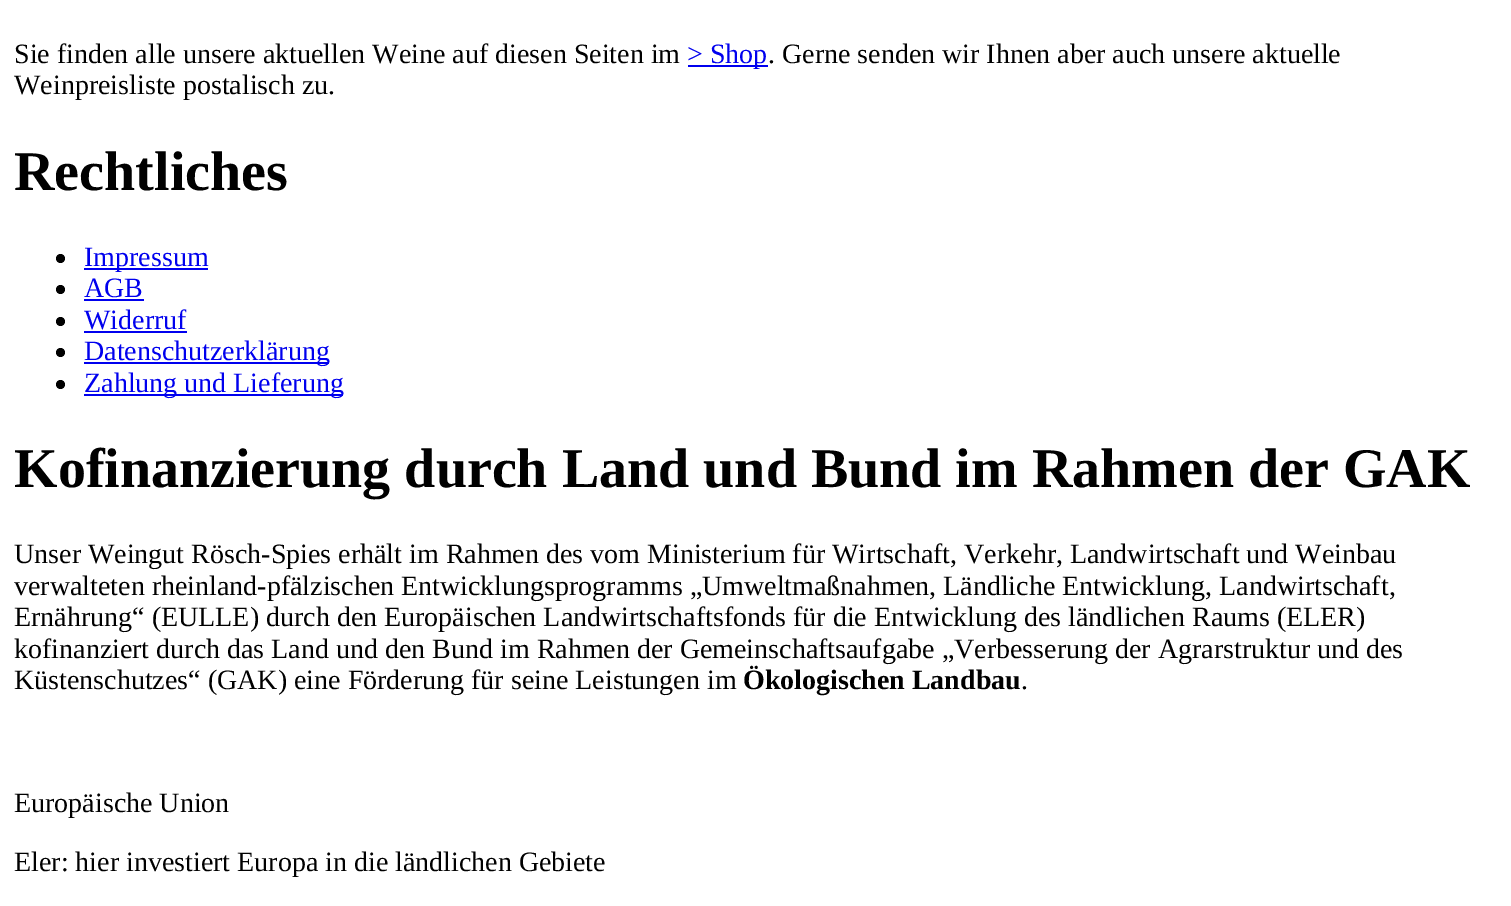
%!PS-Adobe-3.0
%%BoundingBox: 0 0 1511 906
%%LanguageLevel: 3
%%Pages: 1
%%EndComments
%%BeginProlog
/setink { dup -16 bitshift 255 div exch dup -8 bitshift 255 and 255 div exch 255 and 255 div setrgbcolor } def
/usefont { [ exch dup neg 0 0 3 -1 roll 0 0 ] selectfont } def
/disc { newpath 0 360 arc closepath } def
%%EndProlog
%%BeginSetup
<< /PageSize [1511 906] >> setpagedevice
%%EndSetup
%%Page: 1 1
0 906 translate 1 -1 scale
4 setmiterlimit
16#FFFFFF setink
0 0 1511 906 rectfill
/LiberationSerif-Regular 28 usefont
16#000000 setink
14 63 moveto (Sie finden alle unsere aktuellen Weine auf diesen Seiten im) show
16#0000EE setink
688 65 80 2 rectfill
687 63 moveto (> Shop) show
16#000000 setink
768 63 moveto (. Gerne senden wir Ihnen aber auch unsere aktuelle) show
14 94 moveto (Weinpreisliste postalisch zu.) show
/LiberationSerif-Bold 56 usefont
14 190 moveto (Rechtliches) show
60.5 258.5 4.5 disc fill
16#0000EE setink
84 268 124 2 rectfill
/LiberationSerif-Regular 28 usefont
84 266 moveto (Impressum) show
16#000000 setink
60.5 289.5 4.5 disc fill
16#0000EE setink
84 297 moveto (AGB) show
84 299 60 2 rectfill
16#000000 setink
60.5 321.5 4.5 disc fill
16#0000EE setink
84 329 moveto (Widerruf) show
84 331 103 2 rectfill
16#000000 setink
60.5 352.5 4.5 disc fill
16#0000EE setink
84 362 245 2 rectfill
84 360 moveto (Datenschutzerklärung) show
16#000000 setink
60.5 384.5 4.5 disc fill
16#0000EE setink
84 394 259 2 rectfill
84 392 moveto (Zahlung und Lieferung) show
/LiberationSerif-Bold 56 usefont
16#000000 setink
14 487 moveto (Kofinanzierung durch Land und Bund im Rahmen der GAK) show
/LiberationSerif-Regular 28 usefont
[
    [(Unser Weingut Rösch-Spies erhält im Rahmen des vom Ministerium für Wirtschaft, Verkehr, Landwirtschaft und Weinbau) 14 563]
    [(verwalteten rheinland-pfälzischen Entwicklungsprogramms „Umweltmaßnahmen, Ländliche Entwicklung, Landwirtschaft,) 14 595]
    [(Ernährung“ \(EULLE\) durch den Europäischen Landwirtschaftsfonds für die Entwicklung des ländlichen Raums \(ELER\)) 14 626]
    [(kofinanziert durch das Land und den Bund im Rahmen der Gemeinschaftsaufgabe „Verbesserung der Agrarstruktur und des) 14 658]
    [(Küstenschutzes“ \(GAK\) eine Förderung für seine Leistungen im) 14 689]
] { aload pop moveto show } forall
/LiberationSerif-Bold 28 usefont
743 689 moveto (Ökologischen Landbau) show
/LiberationSerif-Regular 28 usefont
[
    [(.) 1021 689]
    [(Europäische Union) 14 812]
    [(Eler: hier investiert Europa in die ländlichen Gebiete) 14 871]
] { aload pop moveto show } forall
showpage
%%EOF
